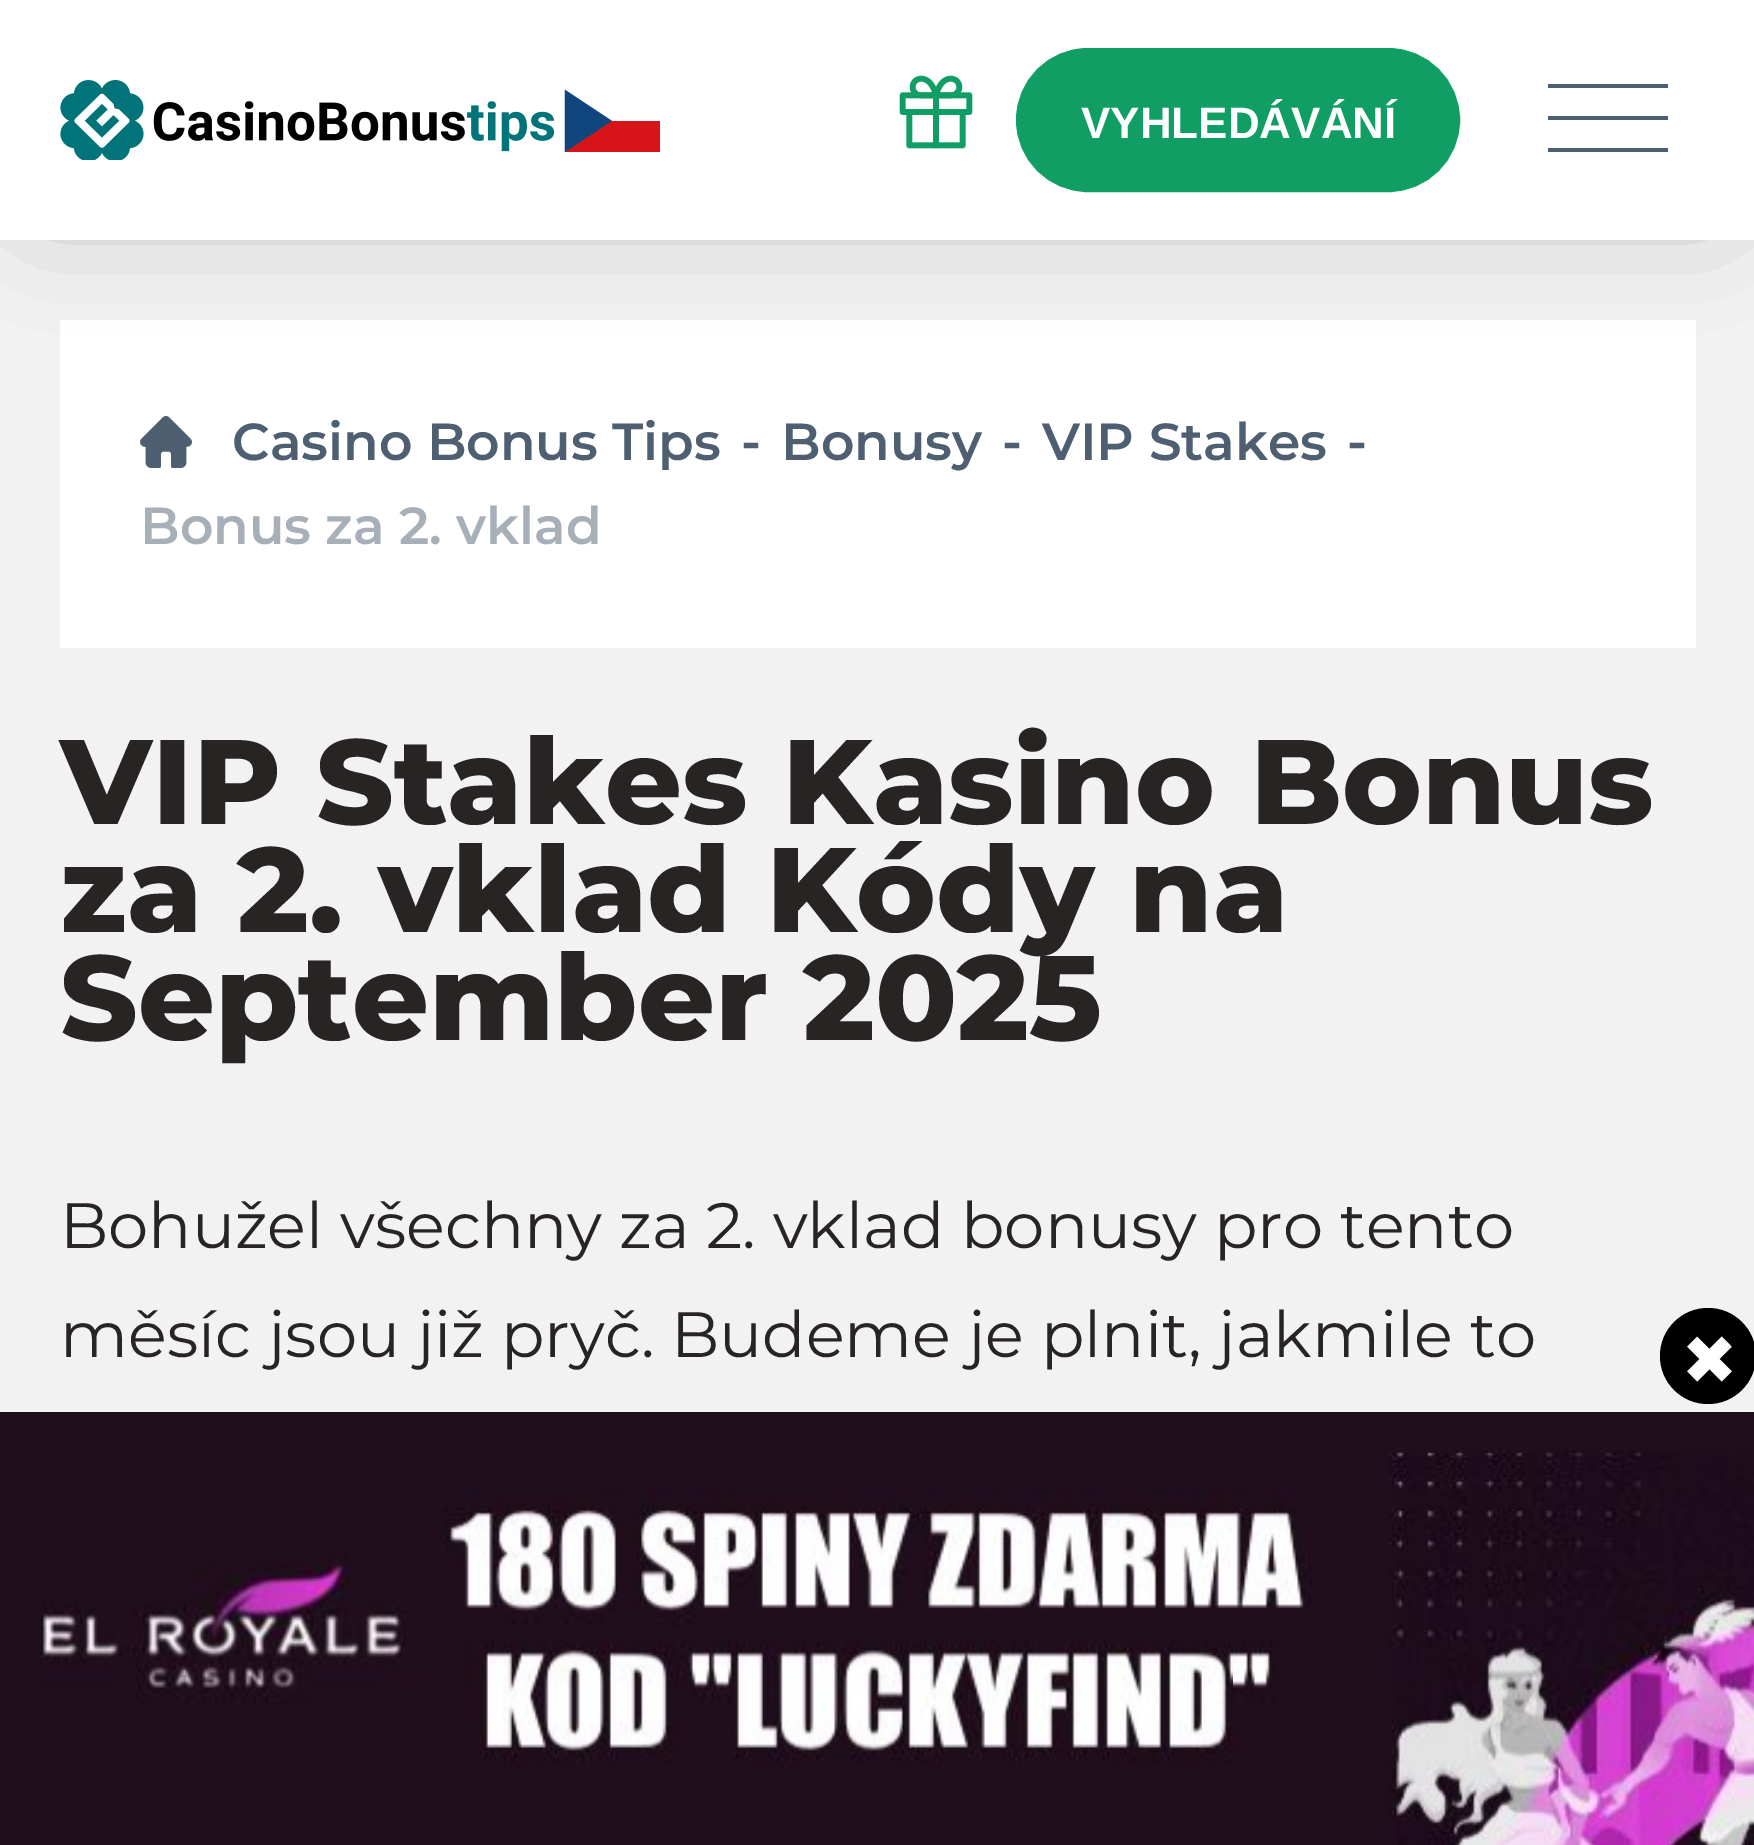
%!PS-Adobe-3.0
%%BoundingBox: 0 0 1754 1845
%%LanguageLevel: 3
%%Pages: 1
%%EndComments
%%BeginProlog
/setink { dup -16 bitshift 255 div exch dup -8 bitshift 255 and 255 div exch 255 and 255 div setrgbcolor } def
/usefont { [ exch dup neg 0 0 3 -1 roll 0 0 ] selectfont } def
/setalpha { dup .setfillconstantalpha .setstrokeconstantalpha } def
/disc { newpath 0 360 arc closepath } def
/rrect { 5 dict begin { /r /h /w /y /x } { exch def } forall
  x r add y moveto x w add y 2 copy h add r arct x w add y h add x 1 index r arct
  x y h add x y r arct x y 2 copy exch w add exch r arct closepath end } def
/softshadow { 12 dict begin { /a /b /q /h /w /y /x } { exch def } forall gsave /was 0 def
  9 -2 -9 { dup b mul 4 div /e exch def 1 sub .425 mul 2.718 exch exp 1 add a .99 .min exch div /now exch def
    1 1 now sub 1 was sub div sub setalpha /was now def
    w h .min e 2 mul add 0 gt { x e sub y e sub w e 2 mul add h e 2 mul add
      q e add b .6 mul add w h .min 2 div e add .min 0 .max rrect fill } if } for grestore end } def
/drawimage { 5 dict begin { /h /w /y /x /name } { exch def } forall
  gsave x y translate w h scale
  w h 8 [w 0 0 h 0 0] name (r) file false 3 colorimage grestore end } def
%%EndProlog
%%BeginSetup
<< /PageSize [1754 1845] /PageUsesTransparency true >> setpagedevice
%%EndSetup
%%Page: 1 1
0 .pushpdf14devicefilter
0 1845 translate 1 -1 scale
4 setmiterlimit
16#F2F2F2 setink
0 0 1754 1845 rectfill
16#FFFFFF setink
60 320 1636 328 rectfill
16#000000 setink
40 40 1676 160 0 60 0.3 softshadow
16#FFFFFF setink
0 0 1754 240 rectfill
(img1.raw) 60 80 600 80 drawimage
(img2.raw) 899 75 74 74 drawimage
16#119E64 setink
1018 50 440 140 70 rrect gsave fill grestore
4 setlinewidth
stroke
/LiberationSans-Bold 44 usefont
16#FFFFFF setink
1081 138 moveto (VYHLEDÁVÁNÍ) show
[
    [1548 84 120 4 16#4E5F72]
    [1548 116 120 4 16#4E5F72]
    [1548 148 120 4 16#4E5F72]
] { aload pop setink rectfill } forall
(img3.raw) 140 416 52 52 drawimage
/Montserrat-SemiBold 52 usefont
[
    [(Casino Bonus Tips) 232 460]
    [(-) 741 460]
    [(Bonusy) 781 460]
    [(-) 1002 460]
    [(VIP Stakes) 1042 460]
    [(-) 1347 460]
] { aload pop moveto show } forall
16#A7AFB9 setink
140 544 moveto (Bonus za 2. vklad) show
/Montserrat-ExtraBold 120 usefont
16#282423 setink
[
    [(VIP Stakes Kasino Bonus) 60 824]
    [(za 2. vklad Kódy na) 60 932]
    [(September 2025) 60 1040]
] { aload pop moveto show } forall
/Montserrat-Regular 64 usefont
60 1248 moveto (Bohužel všechny za 2. vklad bonusy pro tento) show
60 1357 moveto (měsíc jsou již pryč. Budeme je plnit, jakmile to) show
16#000000 setink
1708 1356 48 disc fill
/Montserrat-ExtraBold 100 usefont
16#FFFFFF setink
1679 1394 moveto (×) show
(img4.raw) 0 1412 1754 433 drawimage
.poppdf14devicefilter showpage
%%EOF
